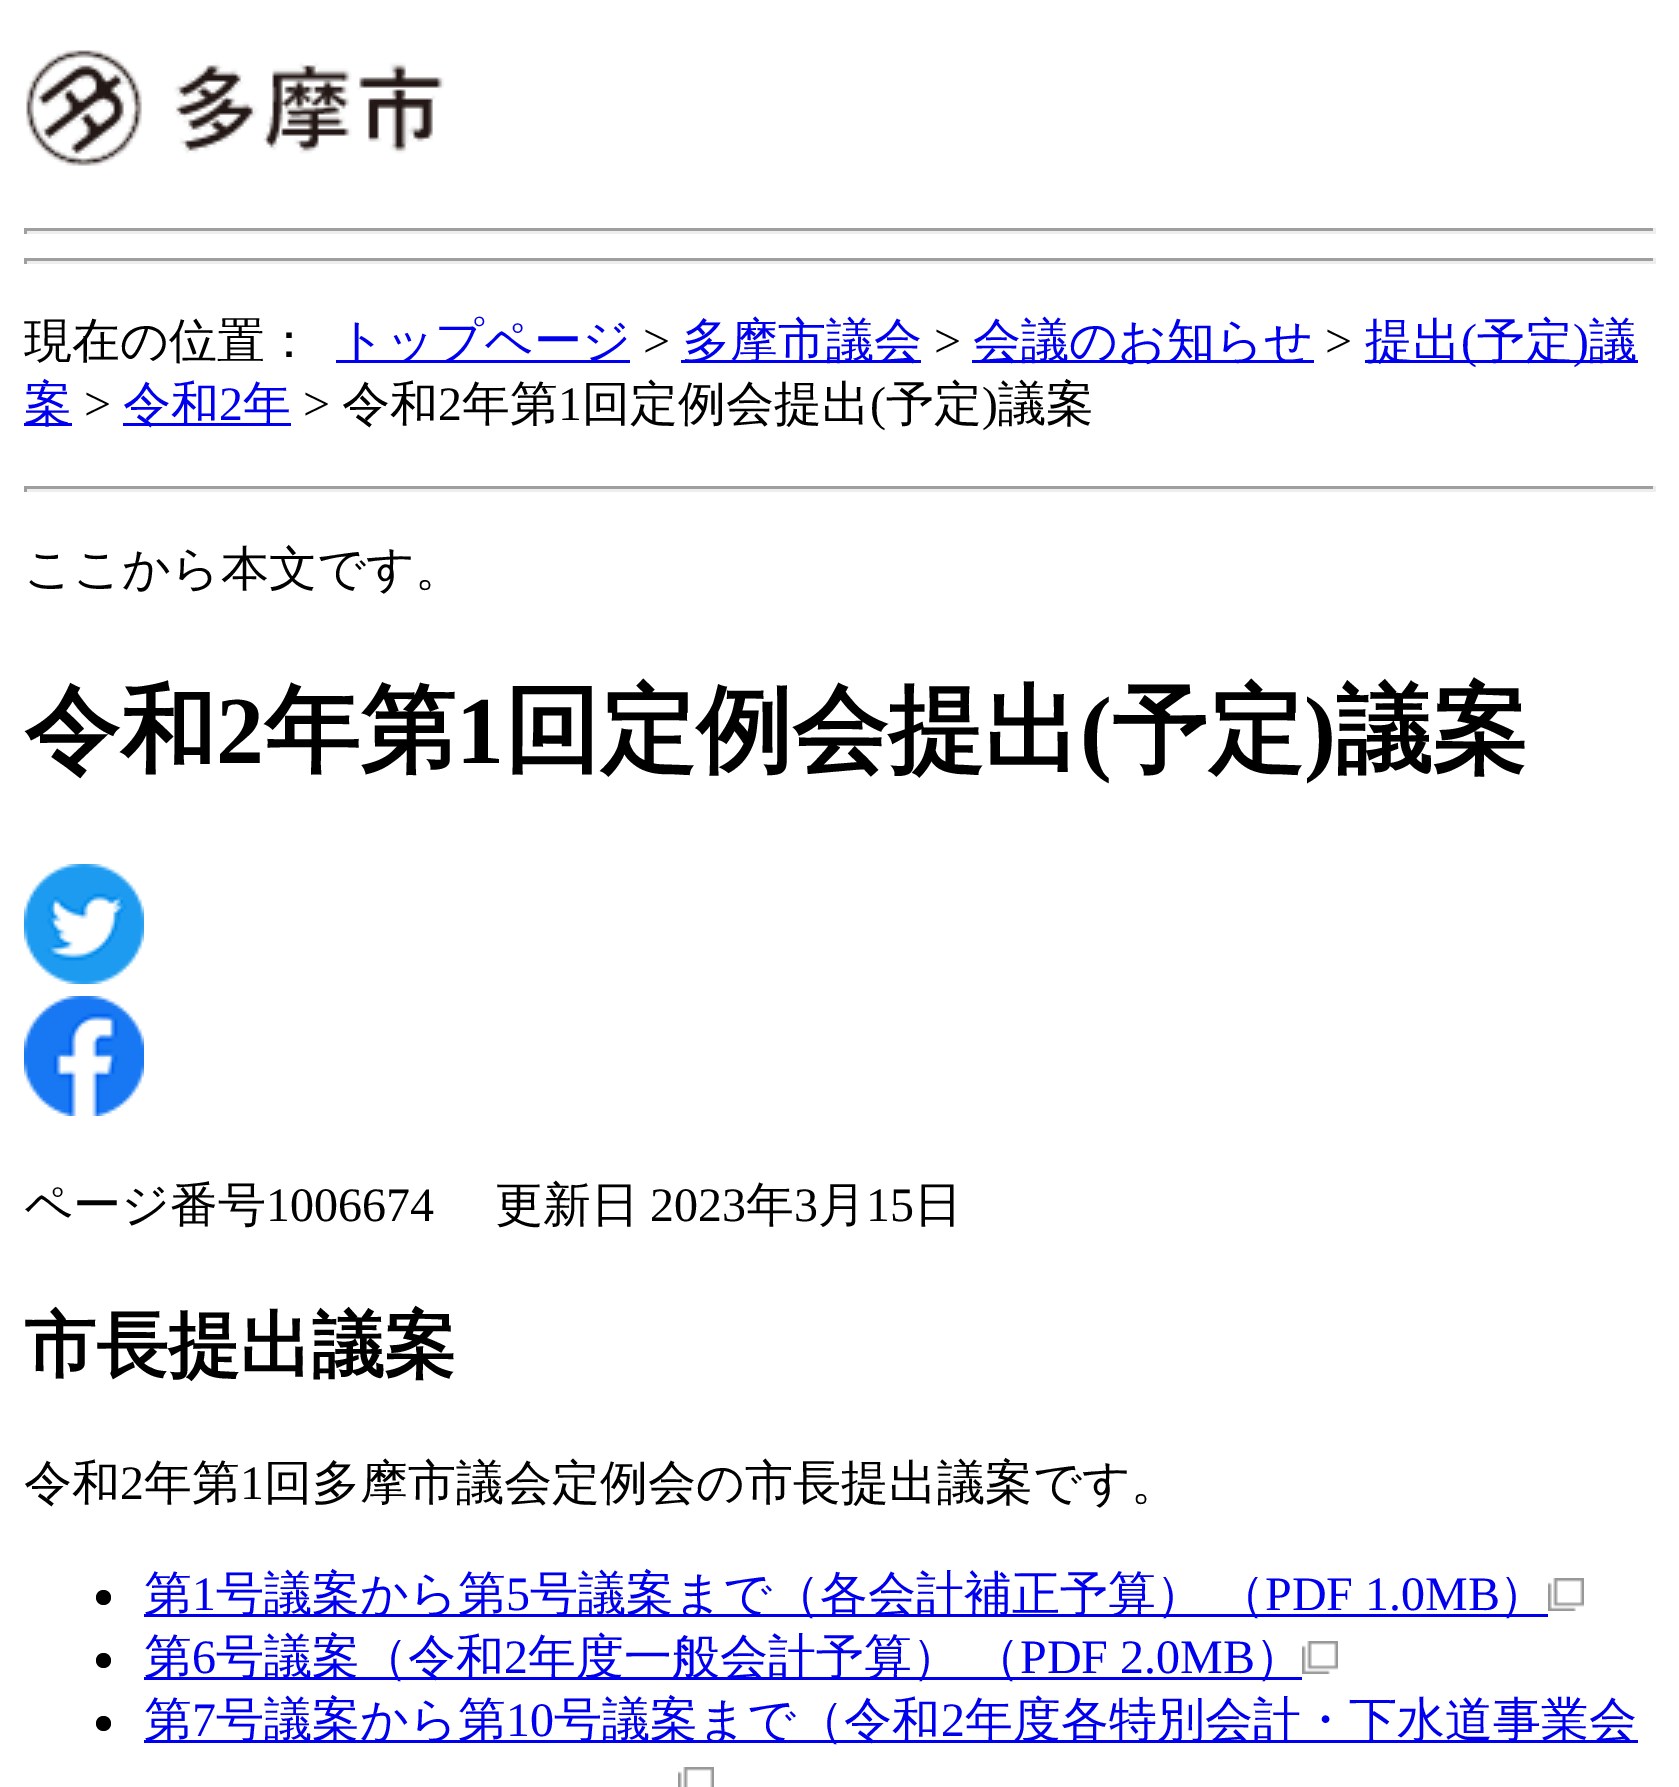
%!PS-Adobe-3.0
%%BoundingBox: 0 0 1679 1787
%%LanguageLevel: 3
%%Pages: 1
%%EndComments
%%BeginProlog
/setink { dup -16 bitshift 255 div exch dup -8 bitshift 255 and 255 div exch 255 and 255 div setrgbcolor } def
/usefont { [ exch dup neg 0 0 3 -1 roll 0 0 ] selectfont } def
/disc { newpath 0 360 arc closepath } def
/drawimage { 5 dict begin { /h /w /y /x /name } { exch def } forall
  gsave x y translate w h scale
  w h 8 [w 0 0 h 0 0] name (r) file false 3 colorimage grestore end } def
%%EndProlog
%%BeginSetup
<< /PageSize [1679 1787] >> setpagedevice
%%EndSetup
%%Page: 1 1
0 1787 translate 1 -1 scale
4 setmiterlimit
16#FFFFFF setink
0 0 1679 1787 rectfill
(img1.raw) 26 50 418 116 drawimage
[
    [24 228 1632 3 16#9F9F9F]
    [1653 228 3 6 16#EEEEEE]
    [24 231 1632 3 16#EEEEEE]
    [24 228 3 6 16#9F9F9F]
    [24 258 1632 3 16#9F9F9F]
    [1653 258 3 6 16#EEEEEE]
    [24 261 1632 3 16#EEEEEE]
    [24 258 3 6 16#9F9F9F]
] { aload pop setink rectfill } forall
/WenQuanYiZenHei-Medium 48 usefont
16#000000 setink
24 357 moveto (現在の位置：) show
16#0000EE setink
336 360 294 3 rectfill
337 357 moveto (トップページ) show
/LiberationSerif-Regular 48 usefont
16#000000 setink
643 357 moveto (>) show
16#0000EE setink
681 360 240 3 rectfill
/WenQuanYiZenHei-Medium 48 usefont
682 357 moveto (多摩市議会) show
/LiberationSerif-Regular 48 usefont
16#000000 setink
934 357 moveto (>) show
16#0000EE setink
972 360 342 3 rectfill
/WenQuanYiZenHei-Medium 48 usefont
973 357 moveto (会議のお知らせ) show
/LiberationSerif-Regular 48 usefont
16#000000 setink
1325 357 moveto (>) show
16#0000EE setink
1365 360 273 3 rectfill
/WenQuanYiZenHei-Medium 48 usefont
1365 357 moveto (提出) show
/LiberationSerif-Regular 48 usefont
1461 357 moveto (\() show
/WenQuanYiZenHei-Medium 48 usefont
1477 357 moveto (予定) show
/LiberationSerif-Regular 48 usefont
1573 357 moveto (\)) show
/WenQuanYiZenHei-Medium 48 usefont
1589 357 moveto (議) show
24 423 48 3 rectfill
24 420 moveto (案) show
/LiberationSerif-Regular 48 usefont
16#000000 setink
84 420 moveto (>) show
16#0000EE setink
123 423 168 3 rectfill
/WenQuanYiZenHei-Medium 48 usefont
123 420 moveto (令和) show
/LiberationSerif-Regular 48 usefont
219 420 moveto (2) show
/WenQuanYiZenHei-Medium 48 usefont
243 420 moveto (年) show
/LiberationSerif-Regular 48 usefont
16#000000 setink
303 420 moveto (>) show
/WenQuanYiZenHei-Medium 48 usefont
342 420 moveto (令和) show
/LiberationSerif-Regular 48 usefont
438 420 moveto (2) show
/WenQuanYiZenHei-Medium 48 usefont
462 420 moveto (年第) show
/LiberationSerif-Regular 48 usefont
558 420 moveto (1) show
/WenQuanYiZenHei-Medium 48 usefont
582 420 moveto (回定例会提出) show
/LiberationSerif-Regular 48 usefont
870 420 moveto (\() show
/WenQuanYiZenHei-Medium 48 usefont
886 420 moveto (予定) show
/LiberationSerif-Regular 48 usefont
982 420 moveto (\)) show
/WenQuanYiZenHei-Medium 48 usefont
998 420 moveto (議案) show
[
    [24 486 1632 3 16#9F9F9F]
    [1653 486 3 6 16#EEEEEE]
    [24 489 1632 3 16#EEEEEE]
    [24 486 3 6 16#9F9F9F]
] { aload pop setink rectfill } forall
16#000000 setink
24 585 moveto (ここから本文です。) show
/WenQuanYiZenHei-Bold 96 usefont
24 763 moveto (令和) show
/LiberationSerif-Bold 96 usefont
216 763 moveto (2) show
/WenQuanYiZenHei-Bold 96 usefont
264 763 moveto (年第) show
/LiberationSerif-Bold 96 usefont
456 763 moveto (1) show
/WenQuanYiZenHei-Bold 96 usefont
504 763 moveto (回定例会提出) show
/LiberationSerif-Bold 96 usefont
1080 763 moveto (\() show
/WenQuanYiZenHei-Bold 96 usefont
1112 763 moveto (予定) show
/LiberationSerif-Bold 96 usefont
1304 763 moveto (\)) show
/WenQuanYiZenHei-Bold 96 usefont
1336 763 moveto (議案) show
(img2.raw) 24 864 120 120 drawimage
(img3.raw) 24 996 120 120 drawimage
/WenQuanYiZenHei-Medium 48 usefont
24 1221 moveto (ページ番号) show
/LiberationSerif-Regular 48 usefont
266 1221 moveto (1006674) show
/WenQuanYiZenHei-Medium 48 usefont
495 1221 moveto (更新日) show
/LiberationSerif-Regular 48 usefont
650 1221 moveto (2023) show
/WenQuanYiZenHei-Medium 48 usefont
746 1221 moveto (年) show
/LiberationSerif-Regular 48 usefont
794 1221 moveto (3) show
/WenQuanYiZenHei-Medium 48 usefont
818 1221 moveto (月) show
/LiberationSerif-Regular 48 usefont
866 1221 moveto (15) show
/WenQuanYiZenHei-Medium 48 usefont
914 1221 moveto (日) show
/WenQuanYiZenHei-Bold 72 usefont
24 1370 moveto (市長提出議案) show
/WenQuanYiZenHei-Medium 48 usefont
24 1499 moveto (令和) show
/LiberationSerif-Regular 48 usefont
120 1499 moveto (2) show
/WenQuanYiZenHei-Medium 48 usefont
144 1499 moveto (年第) show
/LiberationSerif-Regular 48 usefont
240 1499 moveto (1) show
/WenQuanYiZenHei-Medium 48 usefont
264 1499 moveto (回多摩市議会定例会の市長提出議案です。) show
103.5 1597.5 7.5 disc fill
16#0000EE setink
144 1614 1404 3 rectfill
144 1610 moveto (第) show
/LiberationSerif-Regular 48 usefont
192 1610 moveto (1) show
/WenQuanYiZenHei-Medium 48 usefont
216 1610 moveto (号議案から第) show
/LiberationSerif-Regular 48 usefont
506 1610 moveto (5) show
/WenQuanYiZenHei-Medium 48 usefont
530 1610 moveto (号議案まで（各会計補正予算）) show
1217 1610 moveto (（) show
/LiberationSerif-Regular 48 usefont
1265 1610 moveto (PDF 1.0MB) show
/WenQuanYiZenHei-Medium 48 usefont
1499 1610 moveto (）) show
(img4.raw) 1548 1578 36 33 drawimage
16#000000 setink
103.5 1660.5 7.5 disc fill
16#0000EE setink
144 1677 1158 3 rectfill
144 1673 moveto (第) show
/LiberationSerif-Regular 48 usefont
192 1673 moveto (6) show
/WenQuanYiZenHei-Medium 48 usefont
216 1673 moveto (号議案（令和) show
/LiberationSerif-Regular 48 usefont
504 1673 moveto (2) show
/WenQuanYiZenHei-Medium 48 usefont
528 1673 moveto (年度一般会計予算）) show
972 1673 moveto (（) show
/LiberationSerif-Regular 48 usefont
1020 1673 moveto (PDF 2.0MB) show
/WenQuanYiZenHei-Medium 48 usefont
1255 1673 moveto (）) show
(img4.raw) 1302 1641 36 33 drawimage
16#000000 setink
103.5 1723.5 7.5 disc fill
16#0000EE setink
144 1740 1494 3 rectfill
144 1736 moveto (第) show
/LiberationSerif-Regular 48 usefont
192 1736 moveto (7) show
/WenQuanYiZenHei-Medium 48 usefont
216 1736 moveto (号議案から第) show
/LiberationSerif-Regular 48 usefont
506 1736 moveto (10) show
/WenQuanYiZenHei-Medium 48 usefont
554 1736 moveto (号議案まで（令和) show
/LiberationSerif-Regular 48 usefont
941 1736 moveto (2) show
/WenQuanYiZenHei-Medium 48 usefont
965 1736 moveto (年度各特別会計・下水道事業会) show
(img5.raw) 678 1767 36 20 drawimage
showpage
%%EOF
